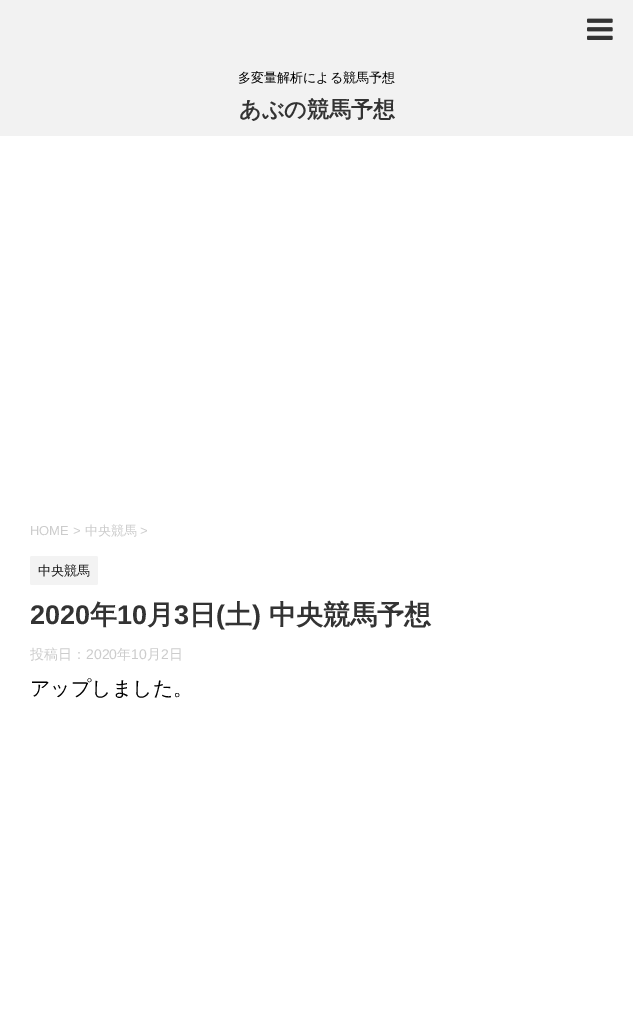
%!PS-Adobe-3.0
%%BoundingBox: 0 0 633 1013
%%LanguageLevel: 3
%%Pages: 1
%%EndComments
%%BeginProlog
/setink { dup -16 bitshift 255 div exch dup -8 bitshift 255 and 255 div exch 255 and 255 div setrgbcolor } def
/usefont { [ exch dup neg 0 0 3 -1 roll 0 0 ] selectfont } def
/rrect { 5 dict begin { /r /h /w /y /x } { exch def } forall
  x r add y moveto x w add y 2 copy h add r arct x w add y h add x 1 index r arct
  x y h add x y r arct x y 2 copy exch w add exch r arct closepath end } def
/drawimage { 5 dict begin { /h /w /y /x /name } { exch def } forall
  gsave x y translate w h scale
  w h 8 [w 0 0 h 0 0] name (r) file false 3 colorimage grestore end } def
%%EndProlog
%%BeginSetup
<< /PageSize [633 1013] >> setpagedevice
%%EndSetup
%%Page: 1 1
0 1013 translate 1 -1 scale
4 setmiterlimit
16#F2F2F2 setink
0 0 633 1013 rectfill
(img1.raw) 587 18 26 22 drawimage
/WenQuanYiZenHei-Medium 13 usefont
16#000000 setink
238 82 moveto (多変量解析による競馬予想) show
/WenQuanYiZenHei-Bold 22 usefont
16#333333 setink
239 117 moveto (あぶの競馬予想) show
16#FFFFFF setink
0 136 633 877 rectfill
/LiberationSans-Regular 13 usefont
16#CCCCCC setink
30 535 moveto (HOME >) show
/WenQuanYiZenHei-Medium 13 usefont
85 535 moveto (中央競馬) show
/LiberationSans-Regular 13 usefont
140 535 moveto (>) show
16#F3F3F3 setink
30 556 68 29 2 rrect fill
/WenQuanYiZenHei-Medium 13 usefont
16#1A1A1A setink
38 575 moveto (中央競馬) show
/LiberationSans-Bold 27 usefont
16#333333 setink
30 624 moveto (2020) show
/WenQuanYiZenHei-Bold 27 usefont
90 624 moveto (年) show
/LiberationSans-Bold 27 usefont
117 624 moveto (10) show
/WenQuanYiZenHei-Bold 27 usefont
147 624 moveto (月) show
/LiberationSans-Bold 27 usefont
174 624 moveto (3) show
/WenQuanYiZenHei-Bold 27 usefont
189 624 moveto (日) show
/LiberationSans-Bold 27 usefont
216 624 moveto (\() show
/WenQuanYiZenHei-Bold 27 usefont
225 624 moveto (土) show
/LiberationSans-Bold 27 usefont
252 624 moveto (\)) show
/WenQuanYiZenHei-Bold 27 usefont
269 624 moveto (中央競馬予想) show
/WenQuanYiZenHei-Medium 14 usefont
16#CCCCCC setink
30 659 moveto (投稿日：) show
/LiberationSans-Regular 14 usefont
86 659 moveto (2020) show
/WenQuanYiZenHei-Medium 14 usefont
117 659 moveto (年) show
/LiberationSans-Regular 14 usefont
131 659 moveto (10) show
/WenQuanYiZenHei-Medium 14 usefont
147 659 moveto (月) show
/LiberationSans-Regular 14 usefont
161 659 moveto (2) show
/WenQuanYiZenHei-Medium 14 usefont
169 659 moveto (日) show
/WenQuanYiZenHei-Medium 20 usefont
16#000000 setink
30 695 moveto (アップしました。) show
showpage
%%EOF
